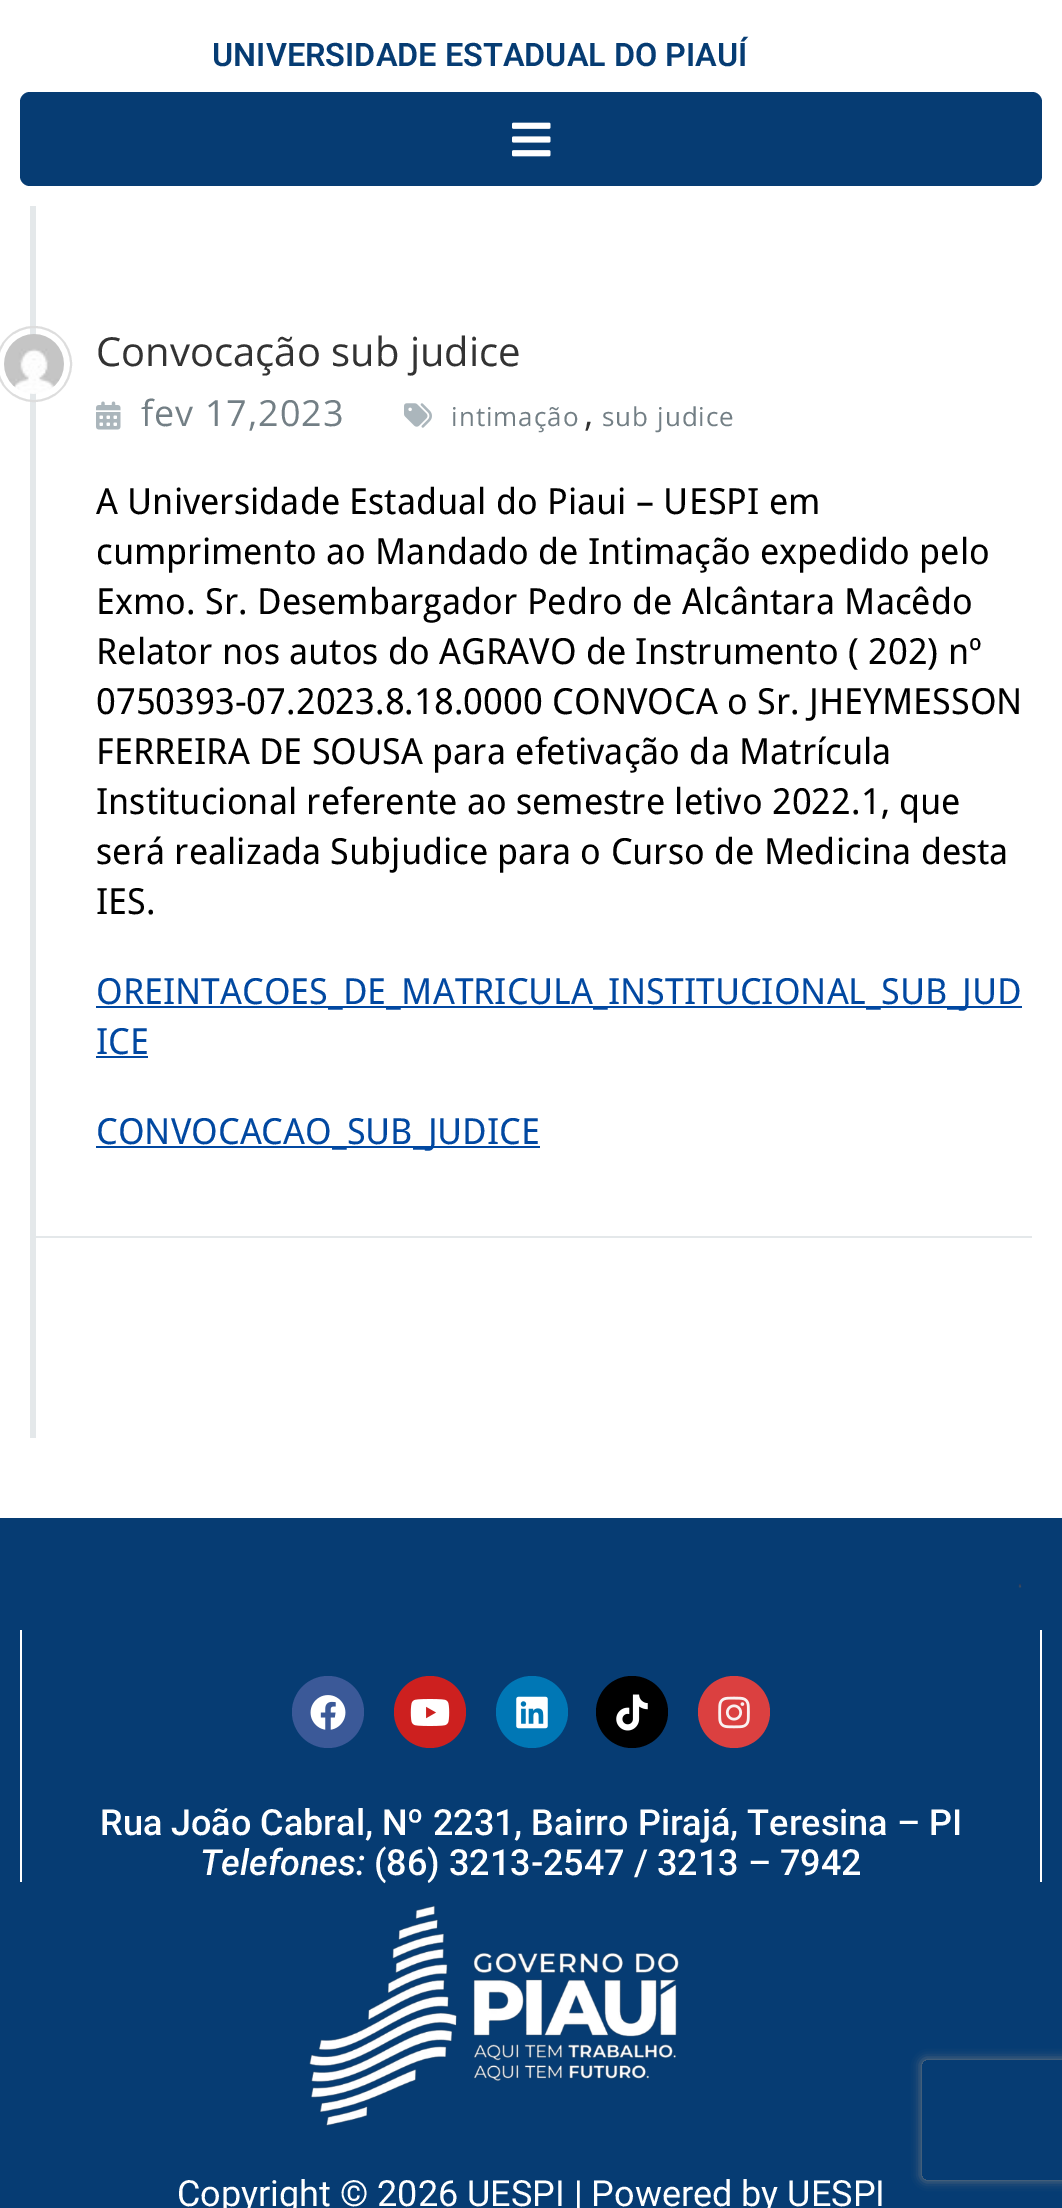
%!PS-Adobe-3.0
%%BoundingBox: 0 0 1062 2208
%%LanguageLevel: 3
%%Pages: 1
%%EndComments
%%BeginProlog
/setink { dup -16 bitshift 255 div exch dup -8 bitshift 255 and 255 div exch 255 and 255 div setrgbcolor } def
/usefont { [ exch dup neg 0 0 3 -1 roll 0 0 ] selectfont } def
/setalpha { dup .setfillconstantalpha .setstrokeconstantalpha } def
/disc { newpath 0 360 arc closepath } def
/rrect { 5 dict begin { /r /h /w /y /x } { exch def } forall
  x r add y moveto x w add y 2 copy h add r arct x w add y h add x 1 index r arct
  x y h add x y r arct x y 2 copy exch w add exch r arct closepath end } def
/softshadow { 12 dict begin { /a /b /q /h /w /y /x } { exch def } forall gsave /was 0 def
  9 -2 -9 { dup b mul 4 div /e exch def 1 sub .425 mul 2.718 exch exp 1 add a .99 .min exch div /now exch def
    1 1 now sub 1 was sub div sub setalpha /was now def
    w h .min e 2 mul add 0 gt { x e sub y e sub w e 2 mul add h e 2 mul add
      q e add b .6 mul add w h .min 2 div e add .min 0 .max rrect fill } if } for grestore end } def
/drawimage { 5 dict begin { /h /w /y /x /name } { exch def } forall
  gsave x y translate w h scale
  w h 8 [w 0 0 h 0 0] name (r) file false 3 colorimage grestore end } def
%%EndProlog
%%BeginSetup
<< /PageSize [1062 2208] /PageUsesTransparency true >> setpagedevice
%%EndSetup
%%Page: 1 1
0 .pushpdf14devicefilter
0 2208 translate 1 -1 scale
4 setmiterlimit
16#FFFFFF setink
0 0 1062 2208 rectfill
/Roboto-SemiBold 32.4 usefont
16#063C73 setink
212 66 moveto (UNIVERSIDADE ESTADUAL DO PIAUÍ) show
20 92 1022 94 10 rrect fill
(img1.raw) 512 122 39 35 drawimage
16#E4E8EA setink
30 206 6 1232 rectfill
36 1236 996 2 rectfill
16#DDDDDD setink
2 setlinewidth
34 364 37 disc stroke
(img2.raw) 4 334 60 60 drawimage
/OpenSans-Regular 40 usefont
16#333333 setink
96 366 moveto (Convocação sub judice) show
(img3.raw) 96 401 25 29 drawimage
/OpenSans-Regular 36 usefont
16#737F85 setink
141 426 moveto 1 0 (fev 17,2023) ashow
(img4.raw) 404 403 28 25 drawimage
/OpenSans-Regular 26 usefont
451 426 moveto 1 0 (intimação) ashow
/OpenSans-Regular 36 usefont
16#333333 setink
584 426 moveto (,) show
/OpenSans-Regular 26 usefont
16#737F85 setink
602 426 moveto 1 0 (sub judice) ashow
/DroidSans-Regular 36 usefont
16#000000 setink
[
    [(A Universidade Estadual do Piaui – UESPI em) 96 514]
    [(cumprimento ao Mandado de Intimação expedido pelo) 96 564]
    [(Exmo. Sr. Desembargador Pedro de Alcântara Macêdo) 96 614]
    [(Relator nos autos do AGRAVO de Instrumento \( 202\) nº) 96 664]
    [(0750393-07.2023.8.18.0000 CONVOCA o Sr. JHEYMESSON) 96 714]
    [(FERREIRA DE SOUSA para efetivação da Matrícula) 96 764]
    [(Institucional referente ao semestre letivo 2022.1, que) 96 814]
    [(será realizada Subjudice para o Curso de Medicina desta) 96 864]
    [(IES.) 96 914]
] { aload pop moveto show } forall
16#0148A1 setink
96 1006 926 2 rectfill
96 1004 moveto (OREINTACOES_DE_MATRICULA_INSTITUCIONAL_SUB_JUD) show
96 1054 moveto (ICE) show
96 1056 52 2 rectfill
96 1146 444 2 rectfill
96 1144 moveto (CONVOCACAO_SUB_JUDICE) show
16#063C73 setink
0 1518 1062 690 rectfill
(img5.raw) 1018 1584 4 4 drawimage
16#FFFFFF setink
1040 1630 2 252 rectfill
20 1630 2 252 rectfill
16#3B5998 setink
328 1712 36 disc fill
(img6.raw) 310 1695 36 35 drawimage
16#CD201F setink
430 1712 36 disc fill
(img7.raw) 410 1699 40 27 drawimage
16#0077B5 setink
532 1712 36 disc fill
(img8.raw) 516 1696 32 33 drawimage
16#000000 setink
632 1712 36 disc fill
(img9.raw) 616 1694 32 37 drawimage
16#DB4040 setink
734 1712 36 disc fill
(img10.raw) 718 1696 32 33 drawimage
/Roboto-Medium 36 usefont
16#FFFFFF setink
100 1835 moveto (Rua João Cabral, Nº 2231, Bairro Pirajá, Teresina – PI) show
/Roboto-MediumItalic 36 usefont
200 1875 moveto (Telefones:) show
/Roboto-Medium 36 usefont
374 1875 moveto (\(86\) 3213-2547 / 3213 – 7942) show
(img11.raw) 309 1905 370 221 drawimage
/Roboto-Regular 36 usefont
177 2206 moveto (Copyright © 2026 UESPI | Powered by UESPI) show
gsave
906 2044 moveto 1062 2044 lineto 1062 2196 lineto 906 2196 lineto closepath 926 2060 moveto 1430 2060 lineto 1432 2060 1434 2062 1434 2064 curveto 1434 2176 lineto 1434 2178 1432 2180 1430 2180 curveto 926 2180 lineto 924 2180 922 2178 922 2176 curveto 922 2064 lineto 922 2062 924 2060 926 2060 curveto closepath eoclip newpath
16#808080 setink
922 2060 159 120 4 5 1 softshadow
grestore
.poppdf14devicefilter showpage
%%EOF
